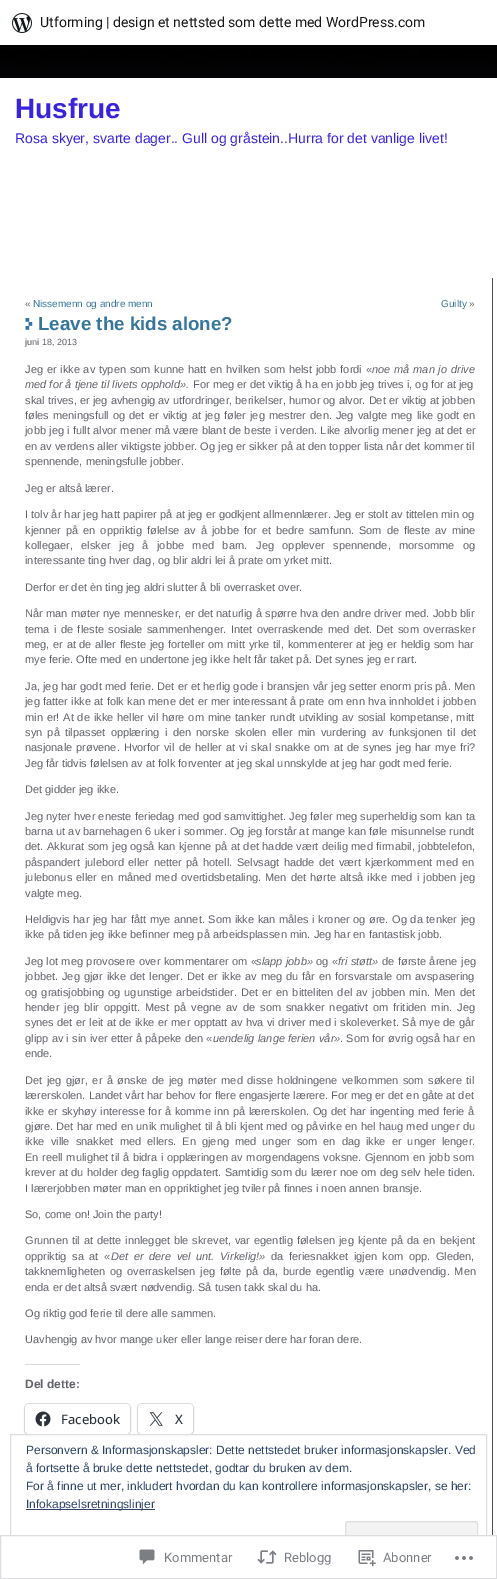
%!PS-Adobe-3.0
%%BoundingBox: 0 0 497 1579
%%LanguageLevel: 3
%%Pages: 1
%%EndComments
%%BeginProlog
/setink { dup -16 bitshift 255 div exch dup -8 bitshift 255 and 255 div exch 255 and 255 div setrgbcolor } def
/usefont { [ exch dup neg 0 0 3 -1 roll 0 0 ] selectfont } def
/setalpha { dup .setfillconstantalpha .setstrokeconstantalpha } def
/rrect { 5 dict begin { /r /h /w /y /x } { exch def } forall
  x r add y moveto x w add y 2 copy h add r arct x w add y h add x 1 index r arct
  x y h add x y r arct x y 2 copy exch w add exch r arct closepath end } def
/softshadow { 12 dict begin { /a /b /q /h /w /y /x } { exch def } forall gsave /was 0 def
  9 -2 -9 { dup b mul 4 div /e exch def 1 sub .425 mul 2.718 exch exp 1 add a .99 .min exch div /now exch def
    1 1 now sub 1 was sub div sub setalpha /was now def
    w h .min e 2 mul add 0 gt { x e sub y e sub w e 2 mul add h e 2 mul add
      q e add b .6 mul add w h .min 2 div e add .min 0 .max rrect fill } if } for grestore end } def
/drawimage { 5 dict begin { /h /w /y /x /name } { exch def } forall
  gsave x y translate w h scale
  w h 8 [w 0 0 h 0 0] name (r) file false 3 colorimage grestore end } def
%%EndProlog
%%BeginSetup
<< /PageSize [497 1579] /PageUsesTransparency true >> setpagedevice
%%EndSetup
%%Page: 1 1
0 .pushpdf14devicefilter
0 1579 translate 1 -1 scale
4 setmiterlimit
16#FFFFFF setink
0 0 497 1579 rectfill
(img1.raw) 0 45 497 33 drawimage
(img2.raw) 12 13 20 20 drawimage
/Roboto-Regular 14 usefont
16#171717 setink
40 27 moveto (Utforming | design et nettsted som dette med WordPress.com) show
/LiberationSans-Bold 28 usefont
16#3923DD setink
15 118 moveto (Husfrue) show
/LiberationSans-Regular 14 usefont
15 143 moveto (Rosa skyer, svarte dager.. Gull og gråstein..Hurra for det vanlige livet!) show
/LiberationSans-Regular 10 usefont
16#61636A setink
25 307 moveto («) show
16#36769C setink
33 307 moveto (Nissemenn og andre menn) show
441 307 moveto (Guilty) show
16#61636A setink
469 307 moveto (») show
(img3.raw) 25 318 8 12 drawimage
/LiberationSans-Bold 18.75 usefont
16#36769C setink
38 330 moveto (Leave the kids alone?) show
/LiberationSans-Regular 9 usefont
16#61636A setink
25 345 moveto (juni 18, 2013) show
/LiberationSans-Regular 11 usefont
25 373 moveto 0.75 0 32 (Jeg er ikke av typen som kunne hatt en hvilken som helst jobb fordi «) widthshow
/LiberationSans-Italic 11 usefont
372 373 moveto 0.75 0 32 (noe må man jo drive) widthshow
25 388 moveto (med for å tjene til livets opphold».) show
/LiberationSans-Regular 11 usefont
193 388 moveto (For meg er det viktig å ha en jobb jeg trives i, og for at jeg) show
25 404 moveto (skal trives, er jeg avhengig av utfordringer, berikelser, humor og alvor. Det er viktig at jobben) show
25 419 moveto 1.1 0 32 (føles meningsfull og det er viktig at jeg føler jeg mestrer den. Jeg valgte meg like godt en) widthshow
25 434 moveto 0.25 0 32 (jobb jeg i fullt alvor mener må være blant de beste i verden. Like alvorlig mener jeg at det er) widthshow
[
    [(en av verdens aller viktigste jobber. Og jeg er sikker på at den topper lista når det kommer til) 25 450]
    [(spennende, meningsfulle jobber.) 25 465]
    [(Jeg er altså lærer.) 25 492]
] { aload pop moveto show } forall
25 518 moveto 0.1 0 32 (I tolv år har jeg hatt papirer på at jeg er godkjent allmennlærer. Jeg er stolt av tittelen min og) widthshow
25 534 moveto 1.9 0 32 (kjenner på en oppriktig følelse av å jobbe for et bedre samfunn. Som de fleste av mine) widthshow
25 549 moveto 5.5 0 32 (kollegaer, elsker jeg å jobbe med barn. Jeg opplever spennende, morsomme og) widthshow
25 564 moveto (interessante ting hver dag, og blir aldri lei å prate om yrket mitt.) show
25 591 moveto (Derfor er det èn ting jeg aldri slutter å bli overrasket over.) show
25 617 moveto 0.25 0 32 (Når man møter nye mennesker, er det naturlig å spørre hva den andre driver med. Jobb blir) widthshow
25 633 moveto 1.4 0 32 (tema i de fleste sosiale sammenhenger. Intet overraskende med det. Det som overrasker) widthshow
25 648 moveto 0.6 0 32 (meg, er at de aller fleste jeg forteller om mitt yrke til, kommenterer at jeg er heldig som har) widthshow
25 663 moveto (mye ferie. Ofte med en undertone jeg ikke helt får taket på. Det synes jeg er rart.) show
25 690 moveto 0.25 0 32 (Ja, jeg har godt med ferie. Det er et herlig gode i bransjen vår jeg setter enorm pris på. Men) widthshow
25 705 moveto 0.25 0 32 (jeg fatter ikke at folk kan mene det er mer interessant å prate om enn hva innholdet i jobben) widthshow
25 721 moveto 0.8 0 32 (min er! At de ikke heller vil høre om mine tanker rundt utvikling av sosial kompetanse, mitt) widthshow
25 736 moveto 2.25 0 32 (syn på tilpasset opplæring i den norske skolen eller min vurdering av funksjonen til det) widthshow
25 751 moveto 1.1 0 32 (nasjonale prøvene. Hvorfor vil de heller at vi skal snakke om at de synes jeg har mye fri?) widthshow
25 767 moveto (Jeg får tidvis følelsen av at folk forventer at jeg skal unnskylde at jeg har godt med ferie.) show
25 793 moveto (Det gidder jeg ikke.) show
25 820 moveto 0.25 0 32 (Jeg nyter hver eneste feriedag med god samvittighet. Jeg føler meg superheldig som kan ta) widthshow
25 835 moveto (barna ut av barnehagen 6 uker i sommer. Og jeg forstår at mange kan føle misunnelse rundt) show
25 850 moveto 0.5 0 32 (det. Akkurat som jeg også kan kjenne på at det hadde vært deilig med firmabil, jobbtelefon,) widthshow
25 866 moveto 1.5 0 32 (påspandert julebord eller netter på hotell. Selvsagt hadde det vært kjærkomment med en) widthshow
25 881 moveto 1.1 0 32 (julebonus eller en måned med overtidsbetaling. Men det hørte altså ikke med i jobben jeg) widthshow
25 897 moveto (valgte meg.) show
25 923 moveto 0.6 0 32 (Heldigvis har jeg har fått mye annet. Som ikke kan måles i kroner og øre. Og da tenker jeg) widthshow
25 938 moveto (ikke på tiden jeg ikke befinner meg på arbeidsplassen min. Jeg har en fantastisk jobb.) show
25 965 moveto 0.5 0 32 (Jeg lot meg provosere over kommentarer om «) widthshow
/LiberationSans-Italic 11 usefont
256 965 moveto 0.5 0 32 (slapp jobb») widthshow
/LiberationSans-Regular 11 usefont
316 965 moveto 0.5 0 32 (og «) widthshow
/LiberationSans-Italic 11 usefont
338 965 moveto 0.5 0 32 (fri støtt») widthshow
/LiberationSans-Regular 11 usefont
382 965 moveto 0.5 0 32 (de første årene jeg) widthshow
25 980 moveto 0.9 0 32 (jobbet. Jeg gjør ikke det lenger. Det er ikke av meg du får en forsvarstale om avspasering) widthshow
25 996 moveto 1.1 0 32 (og gratisjobbing og ugunstige arbeidstider. Det er en bitteliten del av jobben min. Men det) widthshow
25 1011 moveto 2 0 32 (hender jeg blir oppgitt. Mest på vegne av de som snakker negativt om fritiden min. Jeg) widthshow
25 1026 moveto 0.4 0 32 (synes det er leit at de ikke er mer opptatt av hva vi driver med i skoleverket. Så mye de går) widthshow
25 1042 moveto 0.25 0 32 (glipp av i sin iver etter å påpeke den «) widthshow
/LiberationSans-Italic 11 usefont
213 1042 moveto 0.25 0 32 (uendelig lange ferien vår») widthshow
/LiberationSans-Regular 11 usefont
340 1042 moveto 0.25 0 32 (. Som for øvrig også har en) widthshow
25 1057 moveto (ende.) show
25 1084 moveto 1.5 0 32 (Det jeg gjør, er å ønske de jeg møter med disse holdningene velkommen som søkere til) widthshow
25 1099 moveto (lærerskolen. Landet vårt har behov for flere engasjerte lærere. For meg er det en gåte at det) show
25 1115 moveto 0.6 0 32 (ikke er skyhøy interesse for å komme inn på lærerskolen. Og det har ingenting med ferie å) widthshow
25 1130 moveto 0.25 0 32 (gjøre. Det har med en unik mulighet til å bli kjent med og påvirke en hel haug med unger du) widthshow
25 1145 moveto 3 0 32 (ikke ville snakket med ellers. En gjeng med unger som en dag ikke er unger lenger.) widthshow
25 1161 moveto 0.5 0 32 (En reell mulighet til å bidra i opplæringen av morgendagens voksne. Gjennom en jobb som) widthshow
25 1176 moveto 0.25 0 32 (krever at du holder deg faglig oppdatert. Samtidig som du lærer noe om deg selv hele tiden.) widthshow
25 1192 moveto (I lærerjobben møter man en oppriktighet jeg tviler på finnes i noen annen bransje.) show
25 1218 moveto (So, come on! Join the party!) show
25 1244 moveto 0.9 0 32 (Grunnen til at dette innlegget ble skrevet, var egentlig følelsen jeg kjente på da en bekjent) widthshow
25 1260 moveto 2.5 0 32 (oppriktig sa at «) widthshow
/LiberationSans-Italic 11 usefont
111 1260 moveto 2.5 0 32 (Det er dere vel unt. Virkelig!») widthshow
/LiberationSans-Regular 11 usefont
271 1260 moveto 2.5 0 32 (da feriesnakket igjen kom opp. Gleden,) widthshow
25 1275 moveto 1.75 0 32 (takknemligheten og overraskelsen jeg følte på da, burde egentlig være unødvendig. Men) widthshow
[
    [(enda er det altså svært nødvendig. Så tusen takk skal du ha.) 25 1291]
    [(Og riktig god ferie til dere alle sammen.) 25 1317]
    [(Uavhengig av hvor mange uker eller lange reiser dere har foran dere.) 25 1343]
] { aload pop moveto show } forall
16#DCDCDE setink
25 1364 55 1 rectfill
/LiberationSans-Bold 12 usefont
16#61636A setink
25 1388 moveto (Del dette:) show
16#E0E0E0 setink
24.5 1403.5 106 31 4.5 rrect stroke
16#000000 setink
25 1405 105 30 4 1 0.12 softshadow
16#FFFFFF setink
25 1404 105 30 4 rrect fill
(img4.raw) 35 1411 16 16 drawimage
/OpenSans-Medium 13 usefont
16#2C3338 setink
61 1424 moveto (Facebook) show
16#E0E0E0 setink
137.5 1403.5 56 31 4.5 rrect stroke
16#000000 setink
138 1405 55 30 4 1 0.12 softshadow
16#FFFFFF setink
138 1404 55 30 4 rrect fill
(img5.raw) 149 1412 14 14 drawimage
16#2C3338 setink
175 1424 moveto (X) show
16#4C4F58 setink
492 278 1 1301 rectfill
16#FFFFFF setink
26 1435 166 1 rectfill
16#DEDEDE setink
10.5 1434.5 476 134 rectstroke
/LiberationSans-Regular 12 usefont
16#2E4467 setink
[
    [(Personvern & Informasjonskapsler: Dette nettstedet bruker informasjonskapsler. Ved) 26 1454]
    [(å fortsette å bruke dette nettstedet, godtar du bruken av dem.) 26 1472]
    [(For å finne ut mer, inkludert hvordan du kan kontrollere informasjonskapsler, se her:) 26 1490]
] { aload pop moveto show } forall
26 1509 129 1 rectfill
26 1508 moveto (Infokapselsretningslinjer) show
16#F3F3F3 setink
345.5 1521.5 132 38 2.5 rrect gsave fill grestore
16#DEDEDE setink
stroke
0.98 setalpha
16#FFFFFF setink
10 1535 483 44 rectfill
16#DCDCDE setink
0.5 1535.5 496 43 rectstroke
1 setalpha
(img6.raw) 139 1549 16 16 drawimage
/Roboto-Regular 13 usefont
16#7B7F85 setink
164 1562 moveto (Kommentar) show
(img7.raw) 257 1550 20 14 drawimage
284 1562 moveto (Reblogg) show
(img8.raw) 358 1550 18 17 drawimage
383 1562 moveto (Abonner) show
(img9.raw) 455 1556 18 4 drawimage
.poppdf14devicefilter showpage
%%EOF
